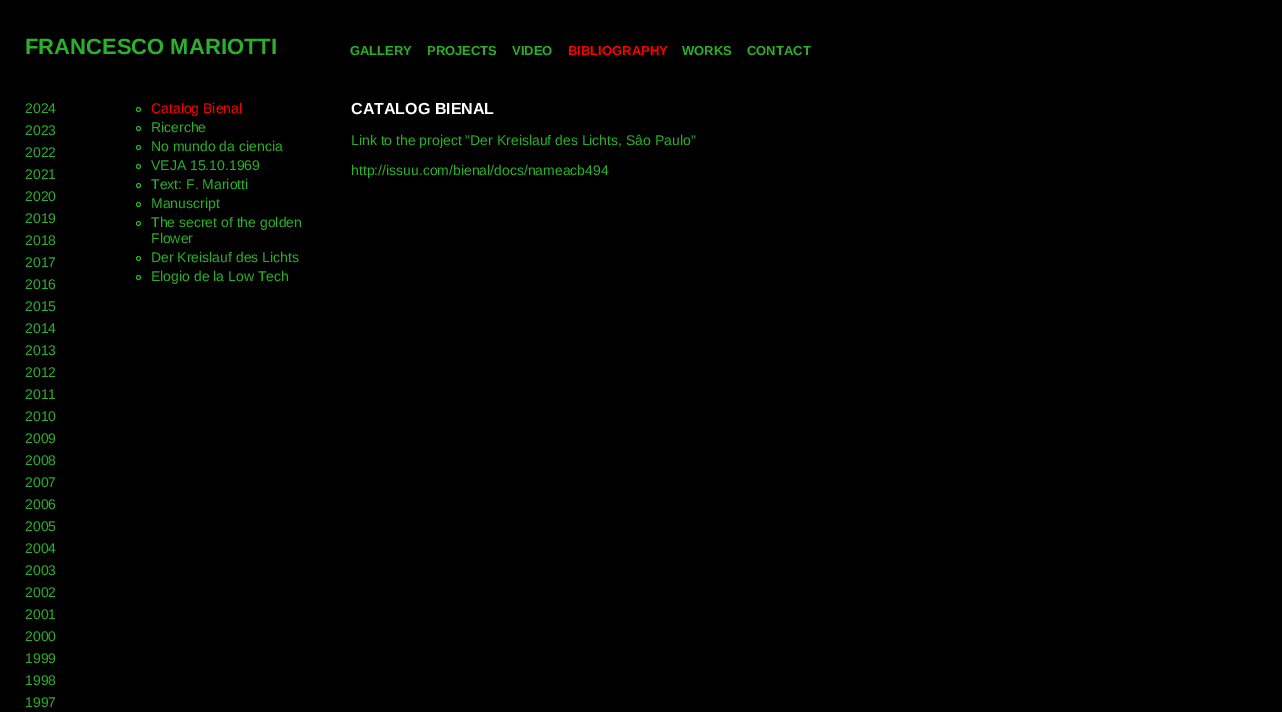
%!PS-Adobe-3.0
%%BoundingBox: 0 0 1282 712
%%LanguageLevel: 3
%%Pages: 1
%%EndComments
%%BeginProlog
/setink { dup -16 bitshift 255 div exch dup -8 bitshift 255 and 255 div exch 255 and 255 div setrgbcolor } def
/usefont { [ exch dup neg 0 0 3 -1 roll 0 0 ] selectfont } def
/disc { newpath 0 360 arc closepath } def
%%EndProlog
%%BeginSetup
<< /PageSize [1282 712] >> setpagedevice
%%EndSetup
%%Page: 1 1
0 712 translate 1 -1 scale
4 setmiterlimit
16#000000 setink
0 0 1282 712 rectfill
/LiberationSans-Bold 22 usefont
16#2BB02B setink
25 54 moveto (FRANCESCO MARIOTTI) show
/LiberationSans-Bold 13 usefont
[
    [(GALLERY) 350 55]
    [(PROJECTS) 427 55]
    [(VIDEO) 512 55]
] { aload pop moveto show } forall
16#FF0000 setink
568 55 moveto (BIBLIOGRAPHY) show
16#2BB02B setink
682 55 moveto (WORKS) show
747 55 moveto (CONTACT) show
/LiberationSans-Regular 14 usefont
[
    [(2024) 25 113]
    [(2023) 25 135]
    [(2022) 25 157]
    [(2021) 25 179]
    [(2020) 25 201]
    [(2019) 25 223]
    [(2018) 25 245]
    [(2017) 25 267]
    [(2016) 25 289]
    [(2015) 25 311]
    [(2014) 25 333]
    [(2013) 25 355]
    [(2012) 25 377]
    [(2011) 25 399]
    [(2010) 25 421]
    [(2009) 25 443]
    [(2008) 25 465]
    [(2007) 25 487]
    [(2006) 25 509]
    [(2005) 25 531]
    [(2004) 25 553]
    [(2003) 25 575]
    [(2002) 25 597]
    [(2001) 25 619]
    [(2000) 25 641]
    [(1999) 25 663]
    [(1998) 25 685]
    [(1997) 25 707]
] { aload pop moveto show } forall
138.5 109.5 2 disc stroke
16#FF0000 setink
151 113 moveto (Catalog Bienal) show
16#2BB02B setink
138.5 128.5 2 disc stroke
151 132 moveto (Ricerche) show
138.5 147.5 2 disc stroke
151 151 moveto (No mundo da ciencia) show
138.5 166.5 2 disc stroke
151 170 moveto (VEJA 15.10.1969) show
138.5 185.5 2 disc stroke
151 189 moveto (Text: F. Mariotti) show
138.5 204.5 2 disc stroke
151 208 moveto (Manuscript) show
138.5 223.5 2 disc stroke
151 227 moveto (The secret of the golden) show
151 243 moveto (Flower) show
138.5 258.5 2 disc stroke
151 262 moveto (Der Kreislauf des Lichts) show
138.5 277.5 2 disc stroke
151 281 moveto (Elogio de la Low Tech) show
/LiberationSans-Bold 16 usefont
16#FFFFFF setink
351 114 moveto (CATALOG BIENAL) show
/LiberationSans-Regular 14 usefont
16#2BB02B setink
351 145 moveto (Link to the project "Der Kreislauf des Lichts, Sâo Paulo") show
351 175 moveto (http://issuu.com/bienal/docs/nameacb494) show
showpage
%%EOF
